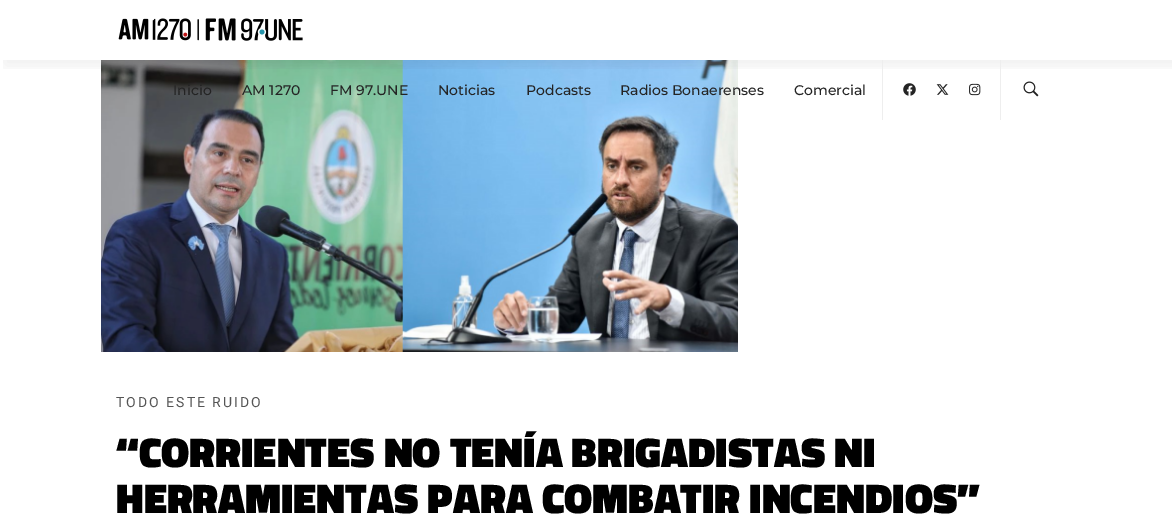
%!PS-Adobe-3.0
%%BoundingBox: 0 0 1172 525
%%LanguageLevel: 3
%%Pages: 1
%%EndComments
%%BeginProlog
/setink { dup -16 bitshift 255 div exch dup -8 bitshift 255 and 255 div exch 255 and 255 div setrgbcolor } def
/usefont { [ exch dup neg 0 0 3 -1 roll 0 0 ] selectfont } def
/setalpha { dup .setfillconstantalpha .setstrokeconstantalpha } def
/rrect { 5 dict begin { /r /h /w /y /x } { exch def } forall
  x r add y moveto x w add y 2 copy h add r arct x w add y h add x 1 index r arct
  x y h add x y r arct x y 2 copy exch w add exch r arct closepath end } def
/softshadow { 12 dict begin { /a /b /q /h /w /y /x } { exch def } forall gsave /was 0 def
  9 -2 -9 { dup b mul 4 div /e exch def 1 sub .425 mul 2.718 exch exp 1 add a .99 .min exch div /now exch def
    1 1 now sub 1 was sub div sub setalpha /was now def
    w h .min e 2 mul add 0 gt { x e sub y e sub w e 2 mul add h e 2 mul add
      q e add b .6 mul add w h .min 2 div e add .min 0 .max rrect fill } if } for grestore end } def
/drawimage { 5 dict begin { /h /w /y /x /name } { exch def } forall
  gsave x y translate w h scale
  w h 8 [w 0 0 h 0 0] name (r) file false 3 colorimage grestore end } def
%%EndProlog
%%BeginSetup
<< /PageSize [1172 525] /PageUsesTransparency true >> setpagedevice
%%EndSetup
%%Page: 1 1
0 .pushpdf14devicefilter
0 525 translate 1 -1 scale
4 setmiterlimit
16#FFFFFF setink
0 0 1172 525 rectfill
(img1.raw) 101 60 637 292 drawimage
gsave
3 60 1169 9 rectclip
16#1F1F1F setink
5 5 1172 60 0 7.5 0.07 softshadow
grestore
(img2.raw) 118 18 185 23 drawimage
/Montserrat-Medium 14 usefont
16#242424 setink
[
    [(Inicio) 173 95]
    [(AM 1270) 242 95]
    [(FM 97.UNE) 330 95]
    [(Noticias) 438 95]
    [(Podcasts) 526 95]
    [(Radios Bonaerenses) 620 95]
    [(Comercial) 794 95]
] { aload pop moveto show } forall
16#EEEEEE setink
882 60 1 60 rectfill
(img3.raw) 903 83 13 13 drawimage
(img4.raw) 936 84 13 11 drawimage
(img5.raw) 969 83 12 13 drawimage
1000 60 1 60 rectfill
(img6.raw) 1023 81 16 16 drawimage
/Roboto-Regular 14 usefont
16#555555 setink
116 407 moveto 2 0 (TODO ESTE RUIDO) ashow
/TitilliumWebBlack-Black 42 usefont
16#000000 setink
116 467 moveto (“CORRIENTES NO TENÍA BRIGADISTAS NI) show
116 513 moveto (HERRAMIENTAS PARA COMBATIR INCENDIOS”) show
.poppdf14devicefilter showpage
%%EOF
